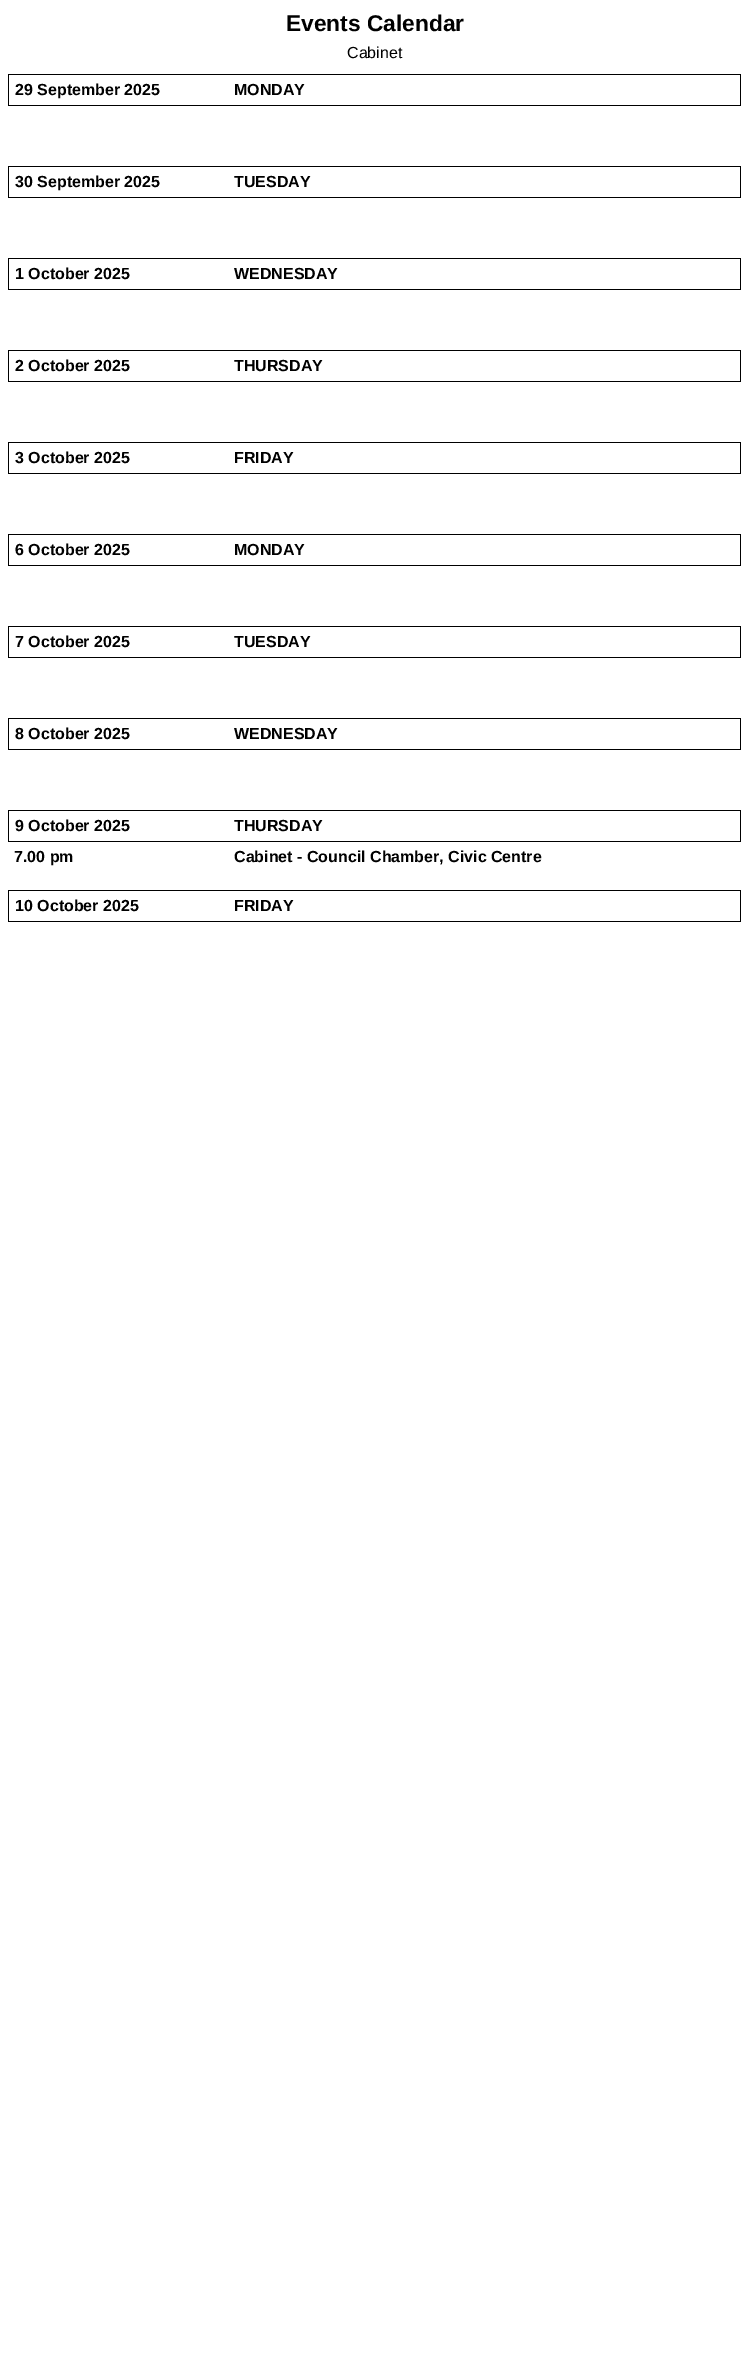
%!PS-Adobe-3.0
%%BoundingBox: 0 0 749 2380
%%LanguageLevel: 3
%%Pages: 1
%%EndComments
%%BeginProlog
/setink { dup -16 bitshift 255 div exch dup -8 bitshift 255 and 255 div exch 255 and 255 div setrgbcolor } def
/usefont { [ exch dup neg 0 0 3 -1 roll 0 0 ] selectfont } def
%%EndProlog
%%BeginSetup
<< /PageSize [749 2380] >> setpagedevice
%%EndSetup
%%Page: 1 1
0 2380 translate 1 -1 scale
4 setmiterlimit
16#FFFFFF setink
0 0 749 2380 rectfill
/LiberationSans-Bold 22.75 usefont
16#000000 setink
286 31 moveto (Events Calendar) show
/LiberationSans-Regular 16 usefont
347 58 moveto (Cabinet) show
[
    [8 74 733 1 16#000000]
    [8 105 220 1 16#000000]
    [8 74 1 32 16#000000]
] { aload pop setink rectfill } forall
/LiberationSans-Bold 16 usefont
15 95 moveto (29 September 2025) show
740 74 1 32 rectfill
228 105 513 1 rectfill
234 95 moveto (MONDAY) show
[
    [8 166 733 1 16#000000]
    [8 197 220 1 16#000000]
    [8 166 1 32 16#000000]
] { aload pop setink rectfill } forall
15 187 moveto (30 September 2025) show
740 166 1 32 rectfill
228 197 513 1 rectfill
234 187 moveto (TUESDAY) show
[
    [8 258 733 1 16#000000]
    [8 289 220 1 16#000000]
    [8 258 1 32 16#000000]
] { aload pop setink rectfill } forall
15 279 moveto (1 October 2025) show
740 258 1 32 rectfill
228 289 513 1 rectfill
234 279 moveto (WEDNESDAY) show
[
    [8 350 733 1 16#000000]
    [8 381 220 1 16#000000]
    [8 350 1 32 16#000000]
] { aload pop setink rectfill } forall
15 371 moveto (2 October 2025) show
740 350 1 32 rectfill
228 381 513 1 rectfill
234 371 moveto (THURSDAY) show
[
    [8 442 733 1 16#000000]
    [8 473 220 1 16#000000]
    [8 442 1 32 16#000000]
] { aload pop setink rectfill } forall
15 463 moveto (3 October 2025) show
740 442 1 32 rectfill
228 473 513 1 rectfill
234 463 moveto (FRIDAY) show
[
    [8 534 733 1 16#000000]
    [8 565 220 1 16#000000]
    [8 534 1 32 16#000000]
] { aload pop setink rectfill } forall
15 555 moveto (6 October 2025) show
740 534 1 32 rectfill
228 565 513 1 rectfill
234 555 moveto (MONDAY) show
[
    [8 626 733 1 16#000000]
    [8 657 220 1 16#000000]
    [8 626 1 32 16#000000]
] { aload pop setink rectfill } forall
15 647 moveto (7 October 2025) show
740 626 1 32 rectfill
228 657 513 1 rectfill
234 647 moveto (TUESDAY) show
[
    [8 718 733 1 16#000000]
    [8 749 220 1 16#000000]
    [8 718 1 32 16#000000]
] { aload pop setink rectfill } forall
15 739 moveto (8 October 2025) show
740 718 1 32 rectfill
228 749 513 1 rectfill
234 739 moveto (WEDNESDAY) show
[
    [8 810 733 1 16#000000]
    [8 841 220 1 16#000000]
    [8 810 1 32 16#000000]
] { aload pop setink rectfill } forall
15 831 moveto (9 October 2025) show
740 810 1 32 rectfill
228 841 513 1 rectfill
[
    [(THURSDAY) 234 831]
    [(7.00 pm) 14 862]
    [(Cabinet - Council Chamber, Civic Centre) 234 862]
] { aload pop moveto show } forall
[
    [8 890 733 1 16#000000]
    [8 921 220 1 16#000000]
    [8 890 1 32 16#000000]
] { aload pop setink rectfill } forall
15 911 moveto (10 October 2025) show
740 890 1 32 rectfill
228 921 513 1 rectfill
234 911 moveto (FRIDAY) show
showpage
%%EOF
